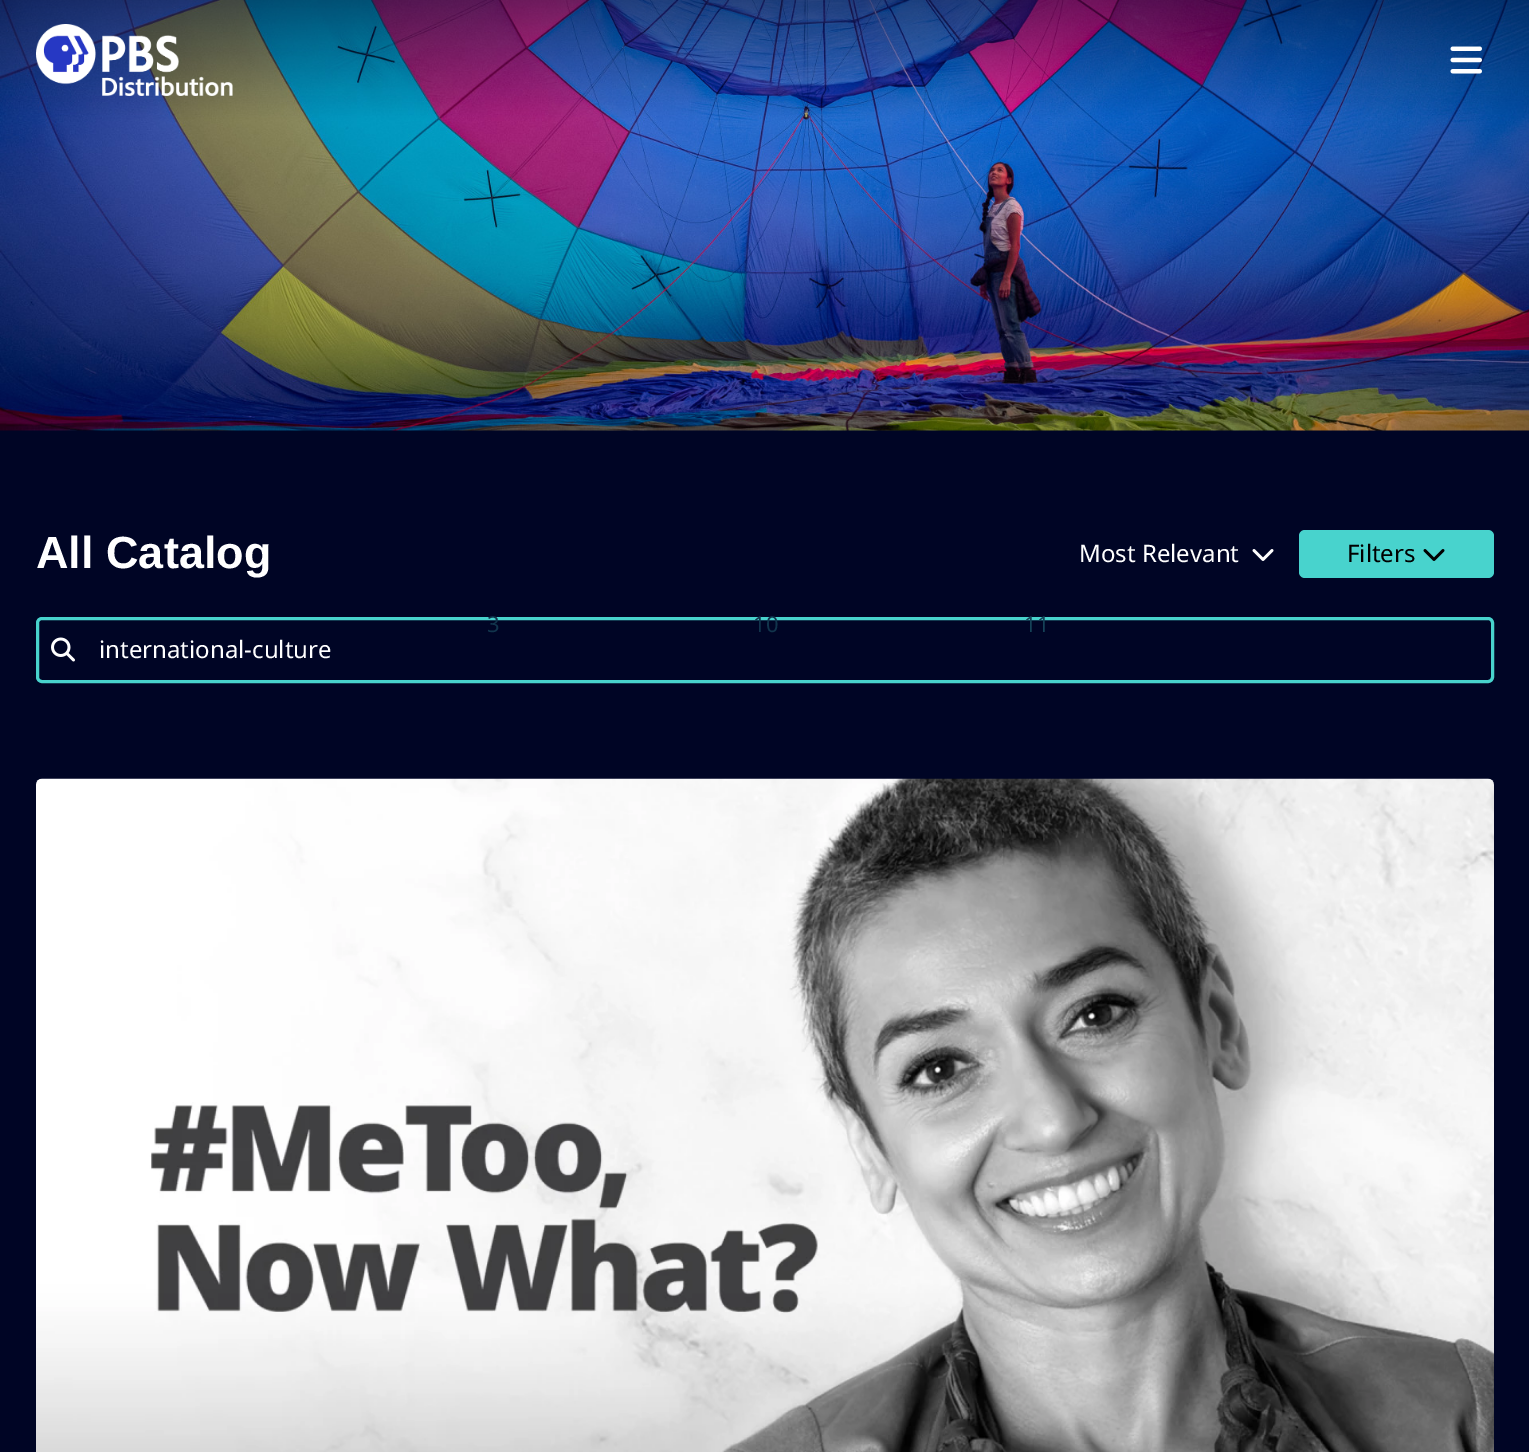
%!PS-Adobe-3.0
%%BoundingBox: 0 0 1529 1452
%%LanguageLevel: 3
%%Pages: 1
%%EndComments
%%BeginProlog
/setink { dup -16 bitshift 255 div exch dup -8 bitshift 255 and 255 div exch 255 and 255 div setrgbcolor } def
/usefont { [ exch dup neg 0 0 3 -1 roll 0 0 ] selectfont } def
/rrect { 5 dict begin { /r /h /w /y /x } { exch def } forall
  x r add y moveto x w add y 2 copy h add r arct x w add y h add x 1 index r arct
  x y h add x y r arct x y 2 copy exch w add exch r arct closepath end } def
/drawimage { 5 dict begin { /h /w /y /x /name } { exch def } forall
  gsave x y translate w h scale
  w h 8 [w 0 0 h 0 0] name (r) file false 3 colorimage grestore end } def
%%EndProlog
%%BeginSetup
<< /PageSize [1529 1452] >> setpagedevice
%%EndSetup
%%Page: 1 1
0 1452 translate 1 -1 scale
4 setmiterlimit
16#000525 setink
0 0 1529 1452 rectfill
(img3.raw) 0 0 1529 431 drawimage
(img1.raw) 36 24 197 72 drawimage
(img2.raw) 1450 46 32 28 drawimage
/LiberationSans-Bold 45 usefont
16#FFFFFF setink
36 568 moveto (All Catalog) show
/NotoSans-Regular 24 usefont
1079 562 moveto (Most Relevant) show
(img4.raw) 1252 549 22 12 drawimage
16#48D3CD setink
1299 530 195 48 6 rrect fill
16#000000 setink
1347 562 moveto (Filters) show
(img5.raw) 1423 549 22 12 drawimage
16#48D3CD setink
3 setlinewidth
37.5 618.5 1455 63 4.5 rrect stroke
(img6.raw) 51 637 24 25 drawimage
16#FFFFFF setink
99 658 moveto (international-culture) show
/NotoSans-Regular 22 usefont
16#11344C setink
487 632 moveto (3) show
753 632 moveto (10) show
16#154257 setink
1024 632 moveto (11) show
(img7.raw) 36 778 1458 674 drawimage
showpage
%%EOF
